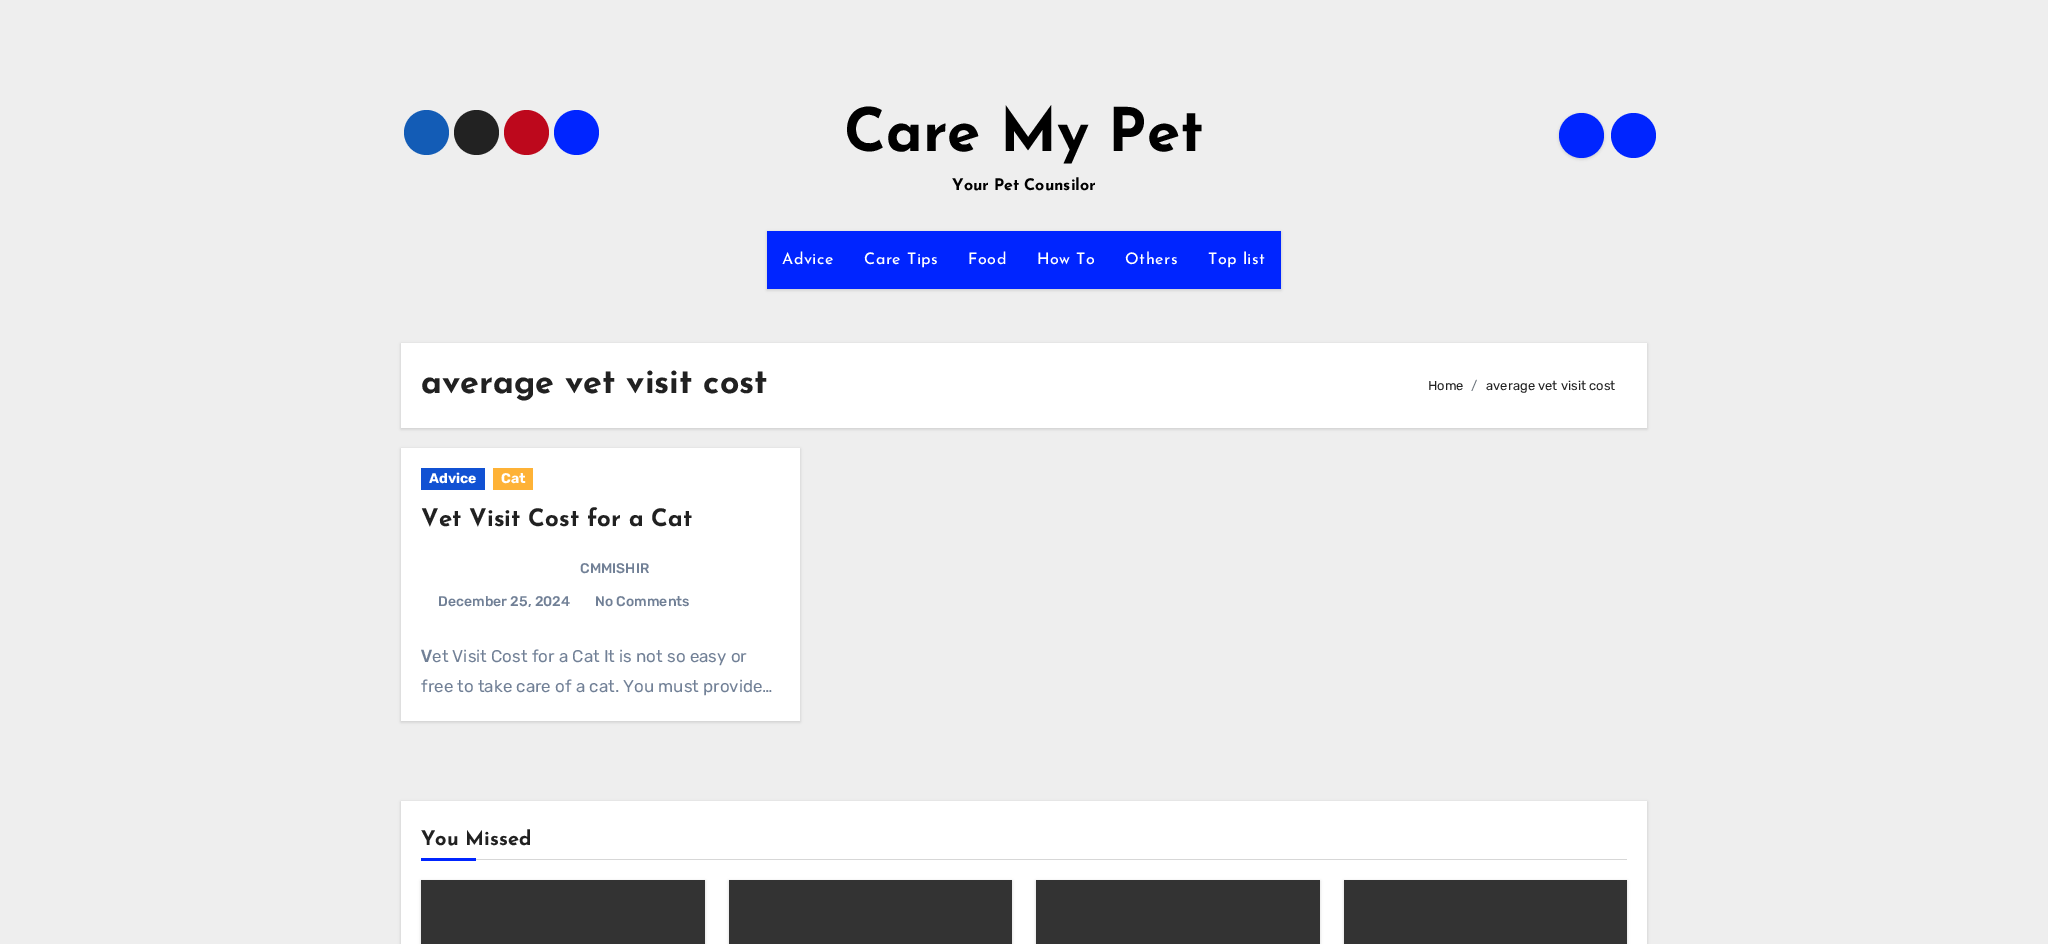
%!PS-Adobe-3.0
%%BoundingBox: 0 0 2048 944
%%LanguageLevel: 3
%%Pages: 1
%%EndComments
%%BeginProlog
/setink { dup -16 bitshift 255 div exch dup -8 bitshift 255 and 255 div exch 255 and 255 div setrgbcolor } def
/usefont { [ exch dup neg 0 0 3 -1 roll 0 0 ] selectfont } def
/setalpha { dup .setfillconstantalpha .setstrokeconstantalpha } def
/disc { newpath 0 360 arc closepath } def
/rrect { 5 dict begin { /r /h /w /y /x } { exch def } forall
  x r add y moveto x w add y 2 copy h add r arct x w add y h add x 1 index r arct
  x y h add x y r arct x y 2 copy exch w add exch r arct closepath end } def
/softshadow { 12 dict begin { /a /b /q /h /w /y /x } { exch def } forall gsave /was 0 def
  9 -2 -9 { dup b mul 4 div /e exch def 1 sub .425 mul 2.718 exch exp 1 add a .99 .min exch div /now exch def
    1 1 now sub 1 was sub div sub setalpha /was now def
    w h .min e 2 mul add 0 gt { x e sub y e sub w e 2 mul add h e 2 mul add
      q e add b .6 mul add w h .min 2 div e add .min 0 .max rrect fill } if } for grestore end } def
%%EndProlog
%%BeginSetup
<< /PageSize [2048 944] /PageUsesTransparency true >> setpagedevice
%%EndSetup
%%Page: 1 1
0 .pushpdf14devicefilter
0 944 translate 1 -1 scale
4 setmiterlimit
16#EEEEEE setink
0 0 2048 944 rectfill
16#135CB6 setink
426.5 132.5 22.5 disc fill
16#222222 setink
476.5 132.5 22.5 disc fill
16#BD081C setink
526.5 132.5 22.5 disc fill
16#0025FF setink
576.5 132.5 22.5 disc fill
/JosefinSans-Bold 60 usefont
16#000000 setink
844 151 moveto (Care My Pet) show
/JosefinSans-Bold 16 usefont
952 190 moveto (Your Pet Counsilor) show
1559 114 45 45 22.5 1.5 0.15 softshadow
16#0025FF setink
1581.5 135.5 22.5 disc fill
1633.5 135.5 22.5 disc fill
16#000000 setink
767 232 514 58 0 1.5 0.15 softshadow
16#0025FF setink
767 231 514 58 rectfill
/JosefinSans-Medium 16 usefont
16#FFFFFF setink
782 264 moveto 0.5 0 (Advice) ashow
864 264 moveto 0.5 0 (Care Tips) ashow
968 264 moveto 0.5 0 (Food) ashow
1037 264 moveto 0.5 0 (How To) ashow
1125 264 moveto 0.5 0 (Others) ashow
1208 264 moveto 0.5 0 (Top list) ashow
16#000000 setink
401 344 1246 85 0 1.5 0.15 softshadow
16#FFFFFF setink
401 343 1246 85 rectfill
/JosefinSans-Bold 34 usefont
16#212121 setink
421 393 moveto (average vet visit cost) show
/Rubik-Light 13 usefont
1428 390 moveto (Home) show
16#6C757D setink
1471 390 moveto (/) show
16#212121 setink
1486 390 moveto (average vet visit cost) show
16#000000 setink
401 449 399 273 0 1.5 0.15 softshadow
16#FFFFFF setink
401 448 399 273 rectfill
16#1151D3 setink
421 468 64 22 rectfill
/Rubik-Bold 14 usefont
16#FFFFFF setink
429 483 moveto (Advice) show
16#FEB236 setink
493 468 40 22 rectfill
16#FFFFFF setink
501 483 moveto (Cat) show
/JosefinSans-Bold 24 usefont
16#212121 setink
421 526 moveto (Vet Visit Cost for a Cat) show
/Rubik-Medium 14 usefont
16#718096 setink
[
    [(CMMISHIR) 580 573]
    [(December 25, 2024) 438 606]
    [(No Comments) 595 606]
] { aload pop moveto show } forall
/NotoSans-Bold 17 usefont
421 662 moveto (V) show
/Rubik-Light 17 usefont
432 662 moveto (et Visit Cost for a Cat It is not so easy or) show
421 692 moveto (free to take care of a cat. You must provide…) show
16#000000 setink
401 802 1246 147 0 1.5 0.15 softshadow
16#FFFFFF setink
401 801 1246 143 rectfill
16#D7D7D7 setink
476 859 1151 1 rectfill
/JosefinSans-Bold 20 usefont
16#212121 setink
421 845 moveto (You Missed) show
16#0025FF setink
421 858 55 3 rectfill
16#000000 setink
421 881 284 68 0 1.5 0.15 softshadow
16#333333 setink
421 880 284 64 rectfill
16#000000 setink
729 881 283 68 0 1.5 0.15 softshadow
16#333333 setink
729 880 283 64 rectfill
16#000000 setink
1036 881 284 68 0 1.5 0.15 softshadow
16#333333 setink
1036 880 284 64 rectfill
16#000000 setink
1344 881 283 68 0 1.5 0.15 softshadow
16#333333 setink
1344 880 283 64 rectfill
.poppdf14devicefilter showpage
%%EOF
